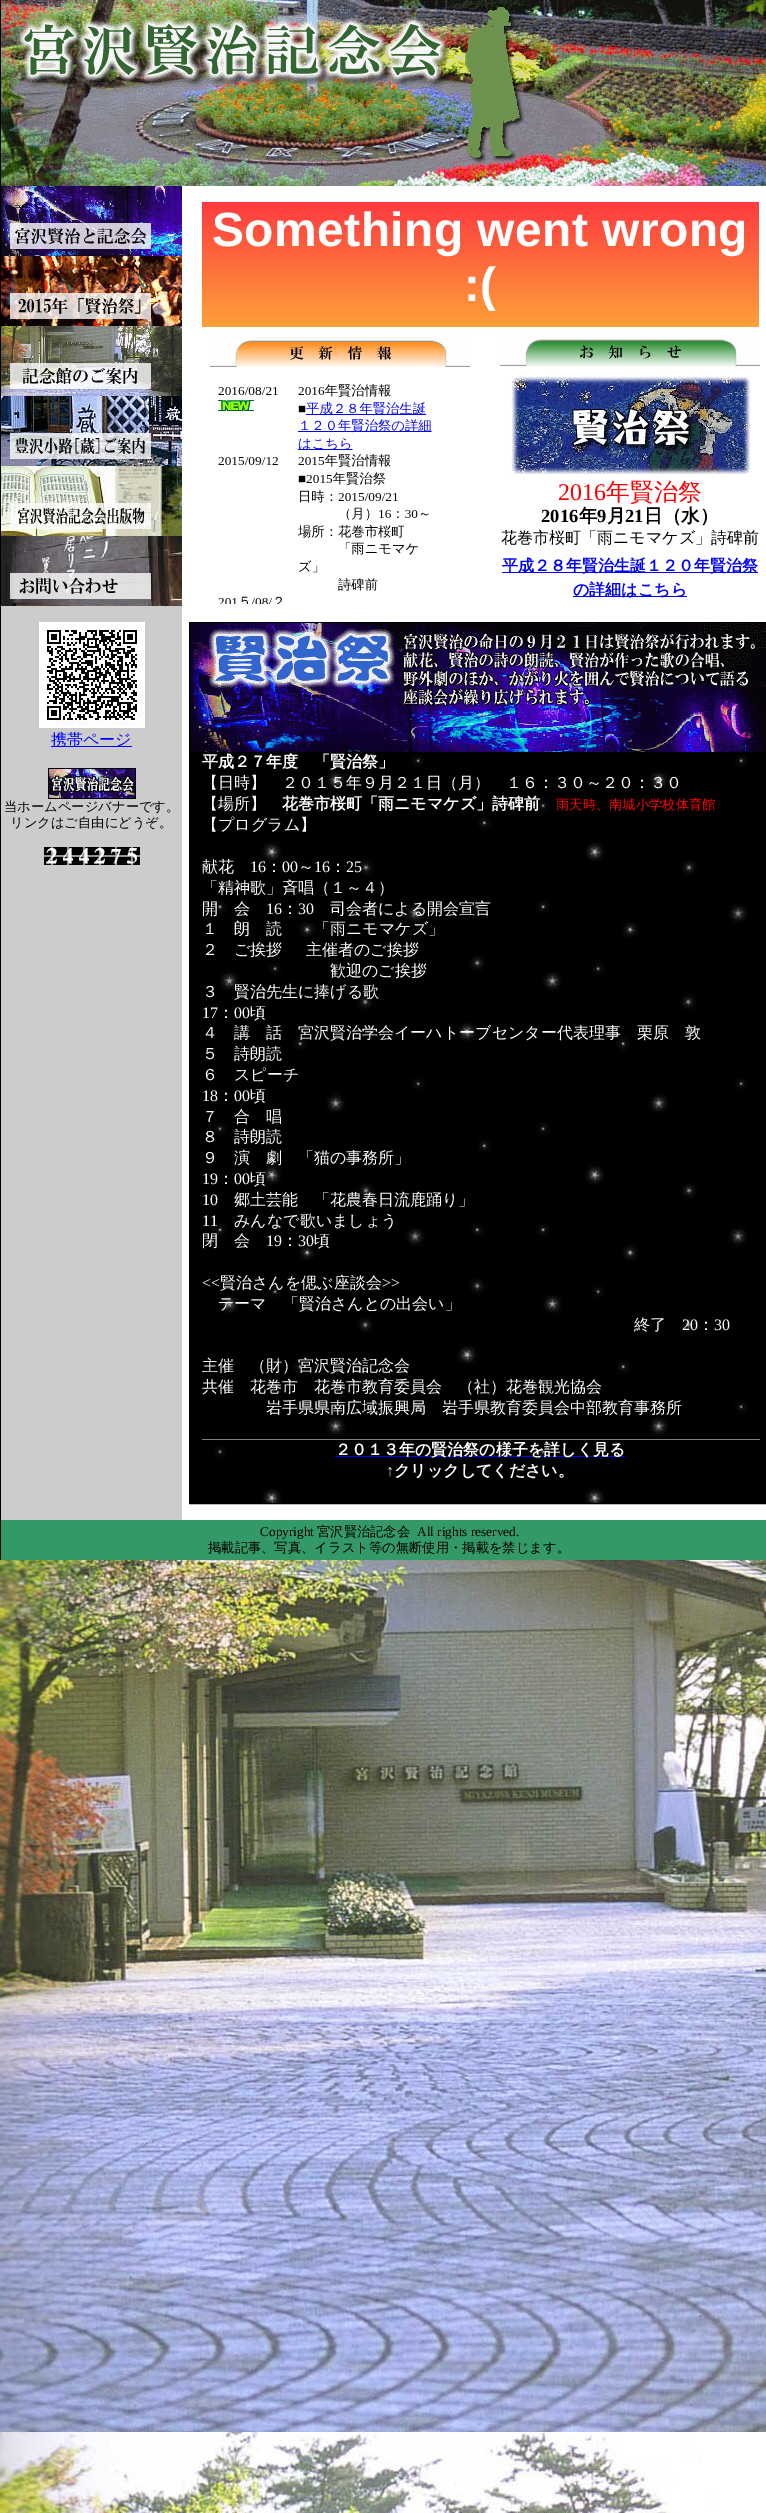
%!PS-Adobe-3.0
%%BoundingBox: 0 0 766 2513
%%LanguageLevel: 3
%%Pages: 1
%%EndComments
%%BeginProlog
/setink { dup -16 bitshift 255 div exch dup -8 bitshift 255 and 255 div exch 255 and 255 div setrgbcolor } def
/usefont { [ exch dup neg 0 0 3 -1 roll 0 0 ] selectfont } def
/drawimage { 5 dict begin { /h /w /y /x /name } { exch def } forall
  gsave x y translate w h scale
  w h 8 [w 0 0 h 0 0] name (r) file false 3 colorimage grestore end } def
%%EndProlog
%%BeginSetup
<< /PageSize [766 2513] >> setpagedevice
%%EndSetup
%%Page: 1 1
0 2513 translate 1 -1 scale
4 setmiterlimit
16#FFFFFF setink
0 0 766 2513 rectfill
(img1.raw) 0 1560 766 953 drawimage
16#000000 setink
0 0 1 1560 rectfill
(img2.raw) 1 0 765 186 drawimage
16#CCCCCC setink
1 606 181 914 rectfill
(img3.raw) 1 186 181 70 drawimage
(img4.raw) 1 256 181 70 drawimage
(img5.raw) 1 326 181 70 drawimage
(img6.raw) 1 396 181 70 drawimage
(img7.raw) 1 466 181 70 drawimage
(img8.raw) 1 536 181 70 drawimage
(img9.raw) 39 622 106 106 drawimage
16#0000FF setink
51 746 81 1 rectfill
/WenQuanYiZenHei-Medium 16 usefont
51 745 moveto (携帯ページ) show
(img10.raw) 48 768 88 31 drawimage
/WenQuanYiZenHei-Medium 13.3 usefont
16#000000 setink
4 811 moveto (当ホームページバナーです。) show
10 827 moveto (リンクはご自由にどうぞ。) show
(img11.raw) 44 847 16 18 drawimage
(img12.raw) 60 847 16 18 drawimage
(img12.raw) 76 847 16 18 drawimage
(img11.raw) 92 847 16 18 drawimage
(img13.raw) 108 847 16 18 drawimage
(img14.raw) 124 847 16 18 drawimage
gsave 202 202 moveto 759 202 lineto 759 327 lineto 202 327 lineto closepath clip newpath
<< /ShadingType 2 /ColorSpace /DeviceRGB /Coords [481 202 481 327] /Extend [true true] /Function << /FunctionType 2 /Domain [0 1] /C0 [0.992 0.227 0.251] /C1 [0.992 0.631 0.22] /N 1 >> >> shfill grestore
/LiberationSans-Bold 48 usefont
16#FFFFFF setink
212 246 moveto 0.4 0 (Something went wrong) ashow
464 301 moveto 0.4 0 (:\() ashow
(img15.raw) 210 340 260 28 drawimage
(img16.raw) 218 384 214 220 drawimage
(img17.raw) 500 339 260 28 drawimage
(img18.raw) 511 376 239 98 drawimage
/LiberationSerif-Regular 24 usefont
16#FF0000 setink
558 500 moveto (2016) show
/WenQuanYiZenHei-Medium 24 usefont
606 500 moveto (年賢治祭) show
/LiberationSerif-Bold 18.5 usefont
16#000000 setink
541 522 moveto (2016) show
/WenQuanYiZenHei-Bold 18.5 usefont
579 522 moveto (年) show
/LiberationSerif-Bold 18.5 usefont
597 522 moveto (9) show
/WenQuanYiZenHei-Bold 18.5 usefont
607 522 moveto (月) show
/LiberationSerif-Bold 18.5 usefont
625 522 moveto (21) show
/WenQuanYiZenHei-Bold 18.5 usefont
644 522 moveto (日（水）) show
/WenQuanYiZenHei-Medium 16 usefont
501 543 moveto (花巻市桜町「雨ニモマケズ」詩碑前) show
16#0000FF setink
502 572 256 1 rectfill
/WenQuanYiZenHei-Bold 16 usefont
502 571 moveto (平成２８年賢治生誕１２０年賢治祭) show
573 596 114 1 rectfill
573 595 moveto (の詳細はこちら) show
16#000000 setink
190 752 576 751 rectfill
(img19.raw) 214 752 533 751 drawimage
189.5 622.5 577 881 rectstroke
(img20.raw) 190 623 576 129 drawimage
16#FFFFFF setink
202 767 moveto (平成２７年度　「賢治祭」) show
/WenQuanYiZenHei-Medium 16 usefont
202 788 moveto (【日時】　２０１５年９月２１日（月）　１６：３０～２０：３０) show
202 809 moveto (【場所】) show
/WenQuanYiZenHei-Bold 16 usefont
282 809 moveto (花巻市桜町「雨ニモマケズ」詩碑前) show
/WenQuanYiZenHei-Medium 13.3 usefont
16#FF0000 setink
556 809 moveto (雨天時、南城小学校体育館) show
/WenQuanYiZenHei-Medium 16 usefont
16#FFFFFF setink
202 830 moveto (【プログラム】) show
202 872 moveto (献花) show
/LiberationSerif-Regular 16 usefont
250 872 moveto (16) show
/WenQuanYiZenHei-Medium 16 usefont
266 872 moveto (：) show
/LiberationSerif-Regular 16 usefont
282 872 moveto (00) show
/WenQuanYiZenHei-Medium 16 usefont
298 872 moveto (～) show
/LiberationSerif-Regular 16 usefont
314 872 moveto (16) show
/WenQuanYiZenHei-Medium 16 usefont
330 872 moveto (：) show
/LiberationSerif-Regular 16 usefont
346 872 moveto (25) show
/WenQuanYiZenHei-Medium 16 usefont
202 893 moveto (「精神歌」斉唱（１～４）) show
202 914 moveto (開　会) show
/LiberationSerif-Regular 16 usefont
266 914 moveto (16) show
/WenQuanYiZenHei-Medium 16 usefont
282 914 moveto (：) show
/LiberationSerif-Regular 16 usefont
298 914 moveto (30) show
/WenQuanYiZenHei-Medium 16 usefont
[
    [(司会者による開会宣言) 330 914]
    [(１　朗　読　　「雨ニモマケズ」) 202 934]
    [(２　ご挨拶) 202 955]
    [(主催者のご挨拶) 306 955]
    [(歓迎のご挨拶) 330 976]
    [(３　賢治先生に捧げる歌) 202 997]
] { aload pop moveto show } forall
/LiberationSerif-Regular 16 usefont
202 1018 moveto (17) show
/WenQuanYiZenHei-Medium 16 usefont
218 1018 moveto (：) show
/LiberationSerif-Regular 16 usefont
234 1018 moveto (00) show
/WenQuanYiZenHei-Medium 16 usefont
[
    [(頃) 250 1018]
    [(４　講　話　宮沢賢治学会イーハトーブセンター代表理事　栗原　敦) 202 1038]
    [(５　詩朗読) 202 1059]
    [(６　スピーチ) 202 1080]
] { aload pop moveto show } forall
/LiberationSerif-Regular 16 usefont
202 1101 moveto (18) show
/WenQuanYiZenHei-Medium 16 usefont
218 1101 moveto (：) show
/LiberationSerif-Regular 16 usefont
234 1101 moveto (00) show
/WenQuanYiZenHei-Medium 16 usefont
[
    [(頃) 250 1101]
    [(７　合　唱) 202 1122]
    [(８　詩朗読) 202 1142]
    [(９　演　劇　「猫の事務所」) 202 1163]
] { aload pop moveto show } forall
/LiberationSerif-Regular 16 usefont
202 1184 moveto (19) show
/WenQuanYiZenHei-Medium 16 usefont
218 1184 moveto (：) show
/LiberationSerif-Regular 16 usefont
234 1184 moveto (00) show
/WenQuanYiZenHei-Medium 16 usefont
250 1184 moveto (頃) show
/LiberationSerif-Regular 16 usefont
202 1205 moveto (10) show
/WenQuanYiZenHei-Medium 16 usefont
234 1205 moveto (郷土芸能　「花農春日流鹿踊り」) show
/LiberationSerif-Regular 16 usefont
202 1226 moveto (11) show
/WenQuanYiZenHei-Medium 16 usefont
234 1226 moveto (みんなで歌いましょう) show
202 1246 moveto (閉　会) show
/LiberationSerif-Regular 16 usefont
266 1246 moveto (19) show
/WenQuanYiZenHei-Medium 16 usefont
282 1246 moveto (：) show
/LiberationSerif-Regular 16 usefont
298 1246 moveto (30) show
/WenQuanYiZenHei-Medium 16 usefont
314 1246 moveto (頃) show
/LiberationSerif-Regular 16 usefont
202 1288 moveto (<<) show
/WenQuanYiZenHei-Medium 16 usefont
220 1288 moveto (賢治さんを偲ぶ座談会) show
/LiberationSerif-Regular 16 usefont
382 1288 moveto (>>) show
/WenQuanYiZenHei-Medium 16 usefont
218 1309 moveto (テーマ　「賢治さんとの出会い」) show
634 1330 moveto (終了) show
/LiberationSerif-Regular 16 usefont
682 1330 moveto (20) show
/WenQuanYiZenHei-Medium 16 usefont
698 1330 moveto (：) show
/LiberationSerif-Regular 16 usefont
714 1330 moveto (30) show
/WenQuanYiZenHei-Medium 16 usefont
[
    [(主催　（財）宮沢賢治記念会) 202 1371]
    [(共催　花巻市　花巻市教育委員会　（社）花巻観光協会) 202 1392]
    [(岩手県県南広域振興局　岩手県教育委員会中部教育事務所) 266 1413]
] { aload pop moveto show } forall
16#808080 setink
202 1439 558 1 rectfill
16#0000FF setink
335 1456 290 1 rectfill
/WenQuanYiZenHei-Bold 16 usefont
16#FFFFFF setink
335 1455 moveto (２０１３年の賢治祭の様子を詳しく見る) show
/LiberationSerif-Bold 16 usefont
386 1476 moveto (↑) show
/WenQuanYiZenHei-Bold 16 usefont
394 1476 moveto (クリックしてください。) show
16#339966 setink
1 1520 765 40 rectfill
/LiberationSerif-Regular 13.3 usefont
16#000000 setink
260 1536 moveto (Copyright) show
/WenQuanYiZenHei-Medium 13.3 usefont
317 1536 moveto (宮沢賢治記念会) show
/LiberationSerif-Regular 13.3 usefont
417 1536 moveto (All rights reserved.) show
/WenQuanYiZenHei-Medium 13.3 usefont
208 1552 moveto (掲載記事、写真、イラスト等の無断使用・掲載を禁じます。) show
showpage
%%EOF
